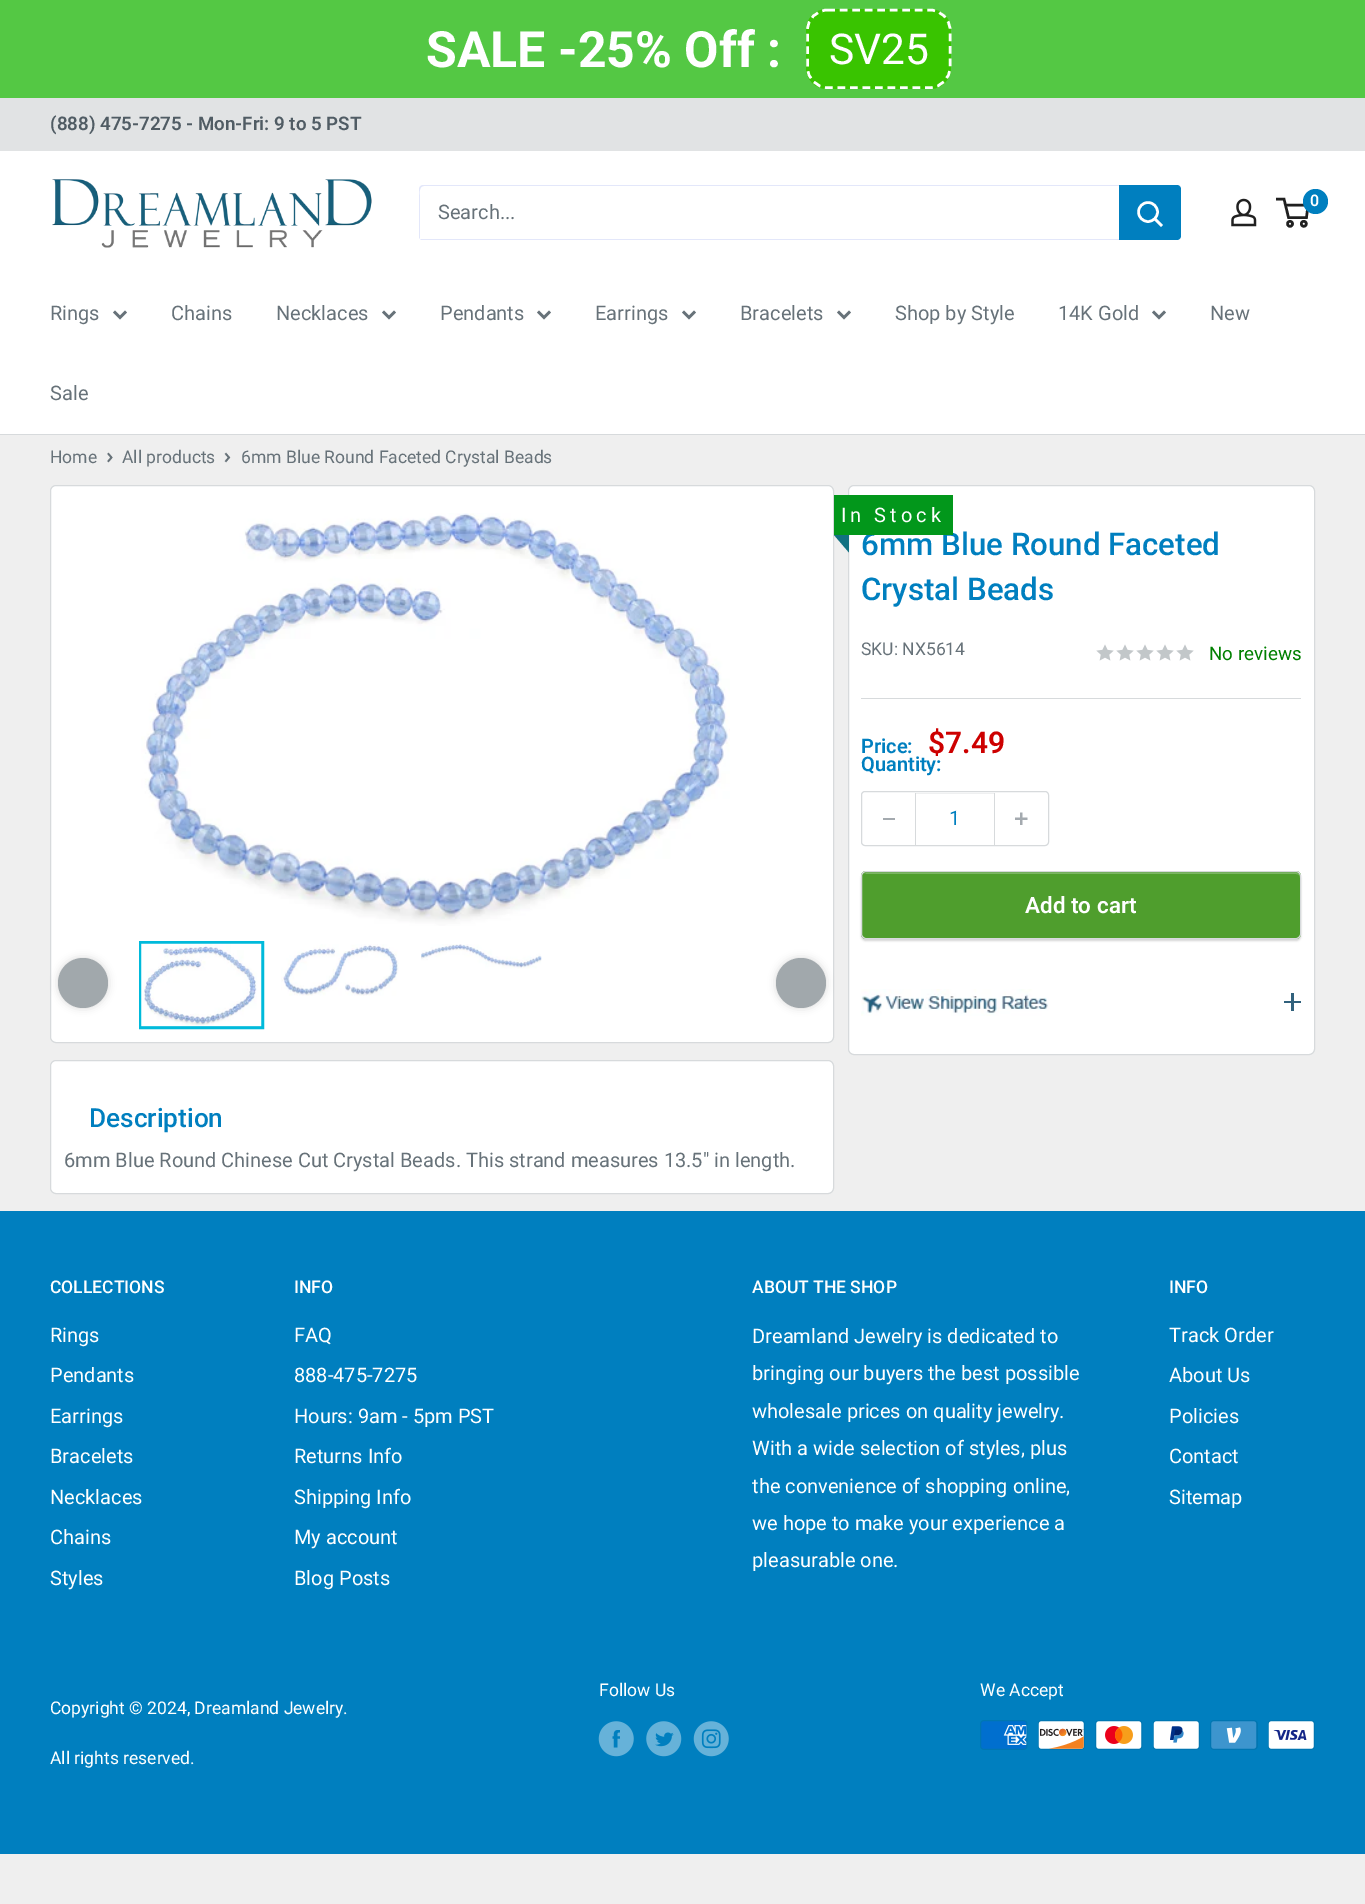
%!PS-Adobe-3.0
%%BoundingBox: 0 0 1365 1904
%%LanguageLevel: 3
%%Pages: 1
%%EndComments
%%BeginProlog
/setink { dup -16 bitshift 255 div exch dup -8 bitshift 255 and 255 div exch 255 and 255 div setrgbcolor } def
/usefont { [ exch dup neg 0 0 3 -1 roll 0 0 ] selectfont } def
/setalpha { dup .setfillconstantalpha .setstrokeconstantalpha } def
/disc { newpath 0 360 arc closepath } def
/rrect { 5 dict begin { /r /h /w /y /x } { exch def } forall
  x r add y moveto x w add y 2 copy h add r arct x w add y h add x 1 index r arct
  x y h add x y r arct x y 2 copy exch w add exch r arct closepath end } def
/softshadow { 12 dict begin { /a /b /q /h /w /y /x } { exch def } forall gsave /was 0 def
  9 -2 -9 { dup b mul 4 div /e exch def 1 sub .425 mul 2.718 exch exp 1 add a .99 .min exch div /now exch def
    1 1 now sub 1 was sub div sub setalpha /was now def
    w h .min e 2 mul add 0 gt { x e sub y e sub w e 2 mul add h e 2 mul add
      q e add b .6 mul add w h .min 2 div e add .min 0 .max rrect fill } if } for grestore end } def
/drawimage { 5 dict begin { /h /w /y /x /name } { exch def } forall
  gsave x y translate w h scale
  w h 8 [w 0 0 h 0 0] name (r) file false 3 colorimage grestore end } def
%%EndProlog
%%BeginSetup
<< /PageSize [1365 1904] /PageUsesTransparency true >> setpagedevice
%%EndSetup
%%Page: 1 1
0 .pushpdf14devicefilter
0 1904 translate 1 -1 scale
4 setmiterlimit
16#EFEFEF setink
0 0 1365 1904 rectfill
16#54C844 setink
0 0 1365 98 rectfill
/Roboto-Bold 50 usefont
16#FFFFFF setink
426 67 moveto (SALE -25% Off :) show
16#39C400 setink
806 9 145 80 21 rrect fill
16#FFFFFF setink
2.5 setlinewidth
[7.5 5] 0 setdash
827.5 10 moveto 930 10 lineto 941 10 950 19 950 30 curveto 950 67.5 lineto 950 78.5 941 87.5 930 87.5 curveto 827.5 87.5 lineto 816.5 87.5 807.5 78.5 807.5 67.5 curveto 807.5 30 lineto 807.5 19 816.5 10 827.5 10 curveto closepath stroke
/Roboto-Regular 42.5 usefont
829 64 moveto (SV25) show
16#E1E3E4 setink
0 98 1365 53 rectfill
/Roboto-SemiBold 18.75 usefont
16#505C64 setink
50 130 moveto (\(888\) 475-7275 - Mon-Fri: 9 to 5 PST) show
16#FFFFFF setink
0 151 1365 283 rectfill
(img1.raw) 52 179 320 69 drawimage
(img2.raw) 1231 198 26 29 drawimage
16#202020 setink
[] 0 setdash
1290 223.8 2.5 disc stroke
1303.8 223.8 2.5 disc stroke
1285.5 205 moveto 1308 205 lineto 1306.5 217.5 lineto 1288.5 217.5 lineto 1284 199 lineto 1276 199 lineto stroke
16#007FBF setink
1315.5 201.5 12.5 disc fill
/Roboto-SemiBold 16 usefont
16#FFFFFF setink
1310 206 moveto (0) show
16#E3E7FA setink
420 239 moveto 421 240 422 240 423 240 curveto 1177 240 lineto 1179 240 1181 238 1181 236 curveto 1181 189 lineto 1181 188 1180 187 1180 186 curveto 1180 227 lineto 1180 230 1182 239 1176 239 curveto closepath fill
424 186 moveto 1180 186 lineto 1179 185 1178 185 1177 185 curveto 423 185 lineto 421 185 419 187 419 189 curveto 419 236 lineto 419 237 419 238 420 239 curveto 420 198 lineto 420 196 418 186 424 186 curveto closepath fill
/Roboto-Regular 20 usefont
16#677279 setink
438 219 moveto (Search...) show
16#007FBF setink
1119 185 moveto 1177 185 lineto 1179 185 1181 187 1181 189 curveto 1181 236 lineto 1181 238 1179 240 1177 240 curveto 1119 240 lineto closepath fill
16#FFFFFF setink
2 setlinecap
1161 225 moveto 1155 219 lineto stroke
0 setlinecap
1148 212 9.5 disc stroke
16#D7DADC setink
0 434 1365 1 rectfill
16#677279 setink
50 320 moveto (Rings) show
2 setlinecap
125 312.5 moveto 120 317.5 lineto 115 312.5 lineto stroke
171 320 moveto (Chains) show
276 320 moveto (Necklaces) show
394 312.5 moveto 389 317.5 lineto 384 312.5 lineto stroke
440 320 moveto (Pendants) show
549 312.5 moveto 544 317.5 lineto 539 312.5 lineto stroke
595 320 moveto (Earrings) show
694 312.5 moveto 689 317.5 lineto 684 312.5 lineto stroke
740 320 moveto (Bracelets) show
849 312.5 moveto 844 317.5 lineto 839 312.5 lineto stroke
895 320 moveto (Shop by Style) show
1058 320 moveto (14K Gold) show
1164 312.5 moveto 1159 317.5 lineto 1154 312.5 lineto stroke
1210 320 moveto (New) show
50 400 moveto (Sale) show
/Roboto-Regular 17.5 usefont
50 463 moveto (Home) show
1.7 setlinewidth
108.5 454 moveto 111.5 457.5 lineto 108.5 461 lineto stroke
122 463 moveto (All products) show
226 454 moveto 229 457.5 lineto 226 461 lineto stroke
241 463 moveto (6mm Blue Round Faceted Crystal Beads) show
16#FFFFFF setink
50.5 485.5 783 557 5.5 rrect gsave fill grestore
16#D7DADC setink
1 setlinewidth
0 setlinecap
stroke
(img3.raw) 141 513 589 413 drawimage
16#000000 setink
58 958 50 50 25 4 0.15 softshadow
16#A1A8AC setink
83 983 25 disc fill
16#00BADB setink
3 setlinewidth
140.5 942.5 122 85 rectstroke
(img4.raw) 141 943 121 84 drawimage
(img5.raw) 281 944 118 52 drawimage
(img6.raw) 421 944 121 25 drawimage
16#000000 setink
776 958 50 50 25 4 0.15 softshadow
16#A1A8AC setink
801 983 25 disc fill
16#FFFFFF setink
848.5 485.5 466 569 5.5 rrect gsave fill grestore
16#D7DADC setink
1 setlinewidth
stroke
/Roboto-Medium 31.25 usefont
16#007FBF setink
861 555 moveto (6mm Blue Round Faceted) show
16#02971B setink
834 495 119 40 rectfill
/Roboto-Regular 20 usefont
16#FFFFFF setink
841 522 moveto 4 0 (In Stock) ashow
16#127181 setink
834 535 moveto 849 535 lineto 849 552.5 lineto closepath fill
/Roboto-Medium 31.25 usefont
16#007FBF setink
861 600 moveto (Crystal Beads) show
/Roboto-Regular 17.5 usefont
16#677279 setink
861 655 moveto (SKU: NX5614) show
(img7.raw) 1096 644 18 17 drawimage
(img7.raw) 1116 644 18 17 drawimage
(img7.raw) 1136 644 18 17 drawimage
(img7.raw) 1156 644 18 17 drawimage
(img7.raw) 1176 644 18 17 drawimage
/Roboto-Regular 18.75 usefont
16#008000 setink
1209 660 moveto (No reviews) show
16#D7DADC setink
861 698 440 1 rectfill
/Roboto-SemiBold 20 usefont
16#007FBF setink
861 753 moveto (Price:) show
/Roboto-SemiBold 30 usefont
16#CD0000 setink
928 753 moveto ($7.49) show
/Roboto-SemiBold 20 usefont
16#007FBF setink
861 771 moveto (Quantity:) show
16#D7DADC setink
861.5 791.5 187 54 3.5 rrect stroke
[
    [883 818 12 2 16#A4AAAF]
    [916 793 78 1 16#EFF0F1]
    [994 793 1 52 16#D7DADC]
    [915 793 1 52 16#D7DADC]
] { aload pop setink rectfill } forall
/Roboto-Regular 20 usefont
16#007FBF setink
949 825 moveto (1) show
(img8.raw) 1015 812 13 13 drawimage
16#000000 setink
861 874 440 67 5 1 0.17 softshadow
16#4F9E2D setink
861 871 440 68 5 rrect fill
16#7BB662 setink
866 874 moveto 1296 874 lineto 1298 874 1300 875 1300 878 curveto 1300 877 lineto 1300 875 1298 873 1296 873 curveto 867 873 lineto 866 873 865 874 864 874 curveto closepath fill
16#D7DADC setink
861.5 871.5 439 67 4.5 rrect stroke
/Roboto-SemiBold 22.5 usefont
16#FFFFFF setink
1025 913 moveto (Add to cart) show
(img9.raw) 861 989 188 27 drawimage
16#31617C setink
1291 993 3 18 rectfill
1284 1001 17 2 rectfill
16#FFFFFF setink
50.5 1060.5 783 133 5.5 rrect gsave fill grestore
16#D7DADC setink
stroke
/Roboto-Medium 26.25 usefont
16#007FBF setink
89 1127 moveto (Description) show
/Roboto-Regular 20 usefont
16#677279 setink
64 1167 moveto (6mm Blue Round Chinese Cut Crystal Beads. This strand measures 13.5" in length.) show
16#007FBF setink
0 1211 1365 643 rectfill
/Roboto-Medium 17.5 usefont
16#FFFFFF setink
50 1293 moveto (COLLECTIONS) show
/Roboto-Regular 20 usefont
[
    [(Rings) 50 1342]
    [(Pendants) 50 1382]
    [(Earrings) 50 1423]
    [(Bracelets) 50 1463]
    [(Necklaces) 50 1504]
    [(Chains) 50 1544]
    [(Styles) 50 1585]
] { aload pop moveto show } forall
/Roboto-Medium 17.5 usefont
294 1293 moveto (INFO) show
/Roboto-Regular 20 usefont
[
    [(FAQ) 294 1342]
    [(888-475-7275) 294 1382]
    [(Hours: 9am - 5pm PST) 294 1423]
    [(Returns Info) 294 1463]
    [(Shipping Info) 294 1504]
    [(My account) 294 1544]
    [(Blog Posts) 294 1585]
] { aload pop moveto show } forall
/Roboto-Medium 17.5 usefont
752 1293 moveto (ABOUT THE SHOP) show
/Roboto-Regular 20 usefont
[
    [(Dreamland Jewelry is dedicated to) 752 1343]
    [(bringing our buyers the best possible) 752 1380]
    [(wholesale prices on quality jewelry.) 752 1418]
    [(With a wide selection of styles, plus) 752 1455]
    [(the convenience of shopping online,) 752 1493]
    [(we hope to make your experience a) 752 1530]
    [(pleasurable one.) 752 1567]
] { aload pop moveto show } forall
/Roboto-Medium 17.5 usefont
1169 1293 moveto (INFO) show
/Roboto-Regular 20 usefont
[
    [(Track Order) 1169 1342]
    [(About Us) 1169 1382]
    [(Policies) 1169 1423]
    [(Contact) 1169 1463]
    [(Sitemap) 1169 1504]
] { aload pop moveto show } forall
/Roboto-Regular 17.5 usefont
599 1696 moveto (Follow Us) show
(img10.raw) 598 1721 36 36 drawimage
(img11.raw) 646 1721 36 36 drawimage
(img12.raw) 693 1721 36 36 drawimage
980 1696 moveto (We Accept) show
(img13.raw) 980 1720 48 30 drawimage
(img14.raw) 1038 1720 47 30 drawimage
(img15.raw) 1095 1720 48 30 drawimage
(img16.raw) 1153 1720 47 30 drawimage
(img17.raw) 1210 1720 48 30 drawimage
(img18.raw) 1268 1720 47 30 drawimage
50 1714 moveto (Copyright © 2024, Dreamland Jewelry.) show
50 1764 moveto (All rights reserved.) show
.poppdf14devicefilter showpage
%%EOF
